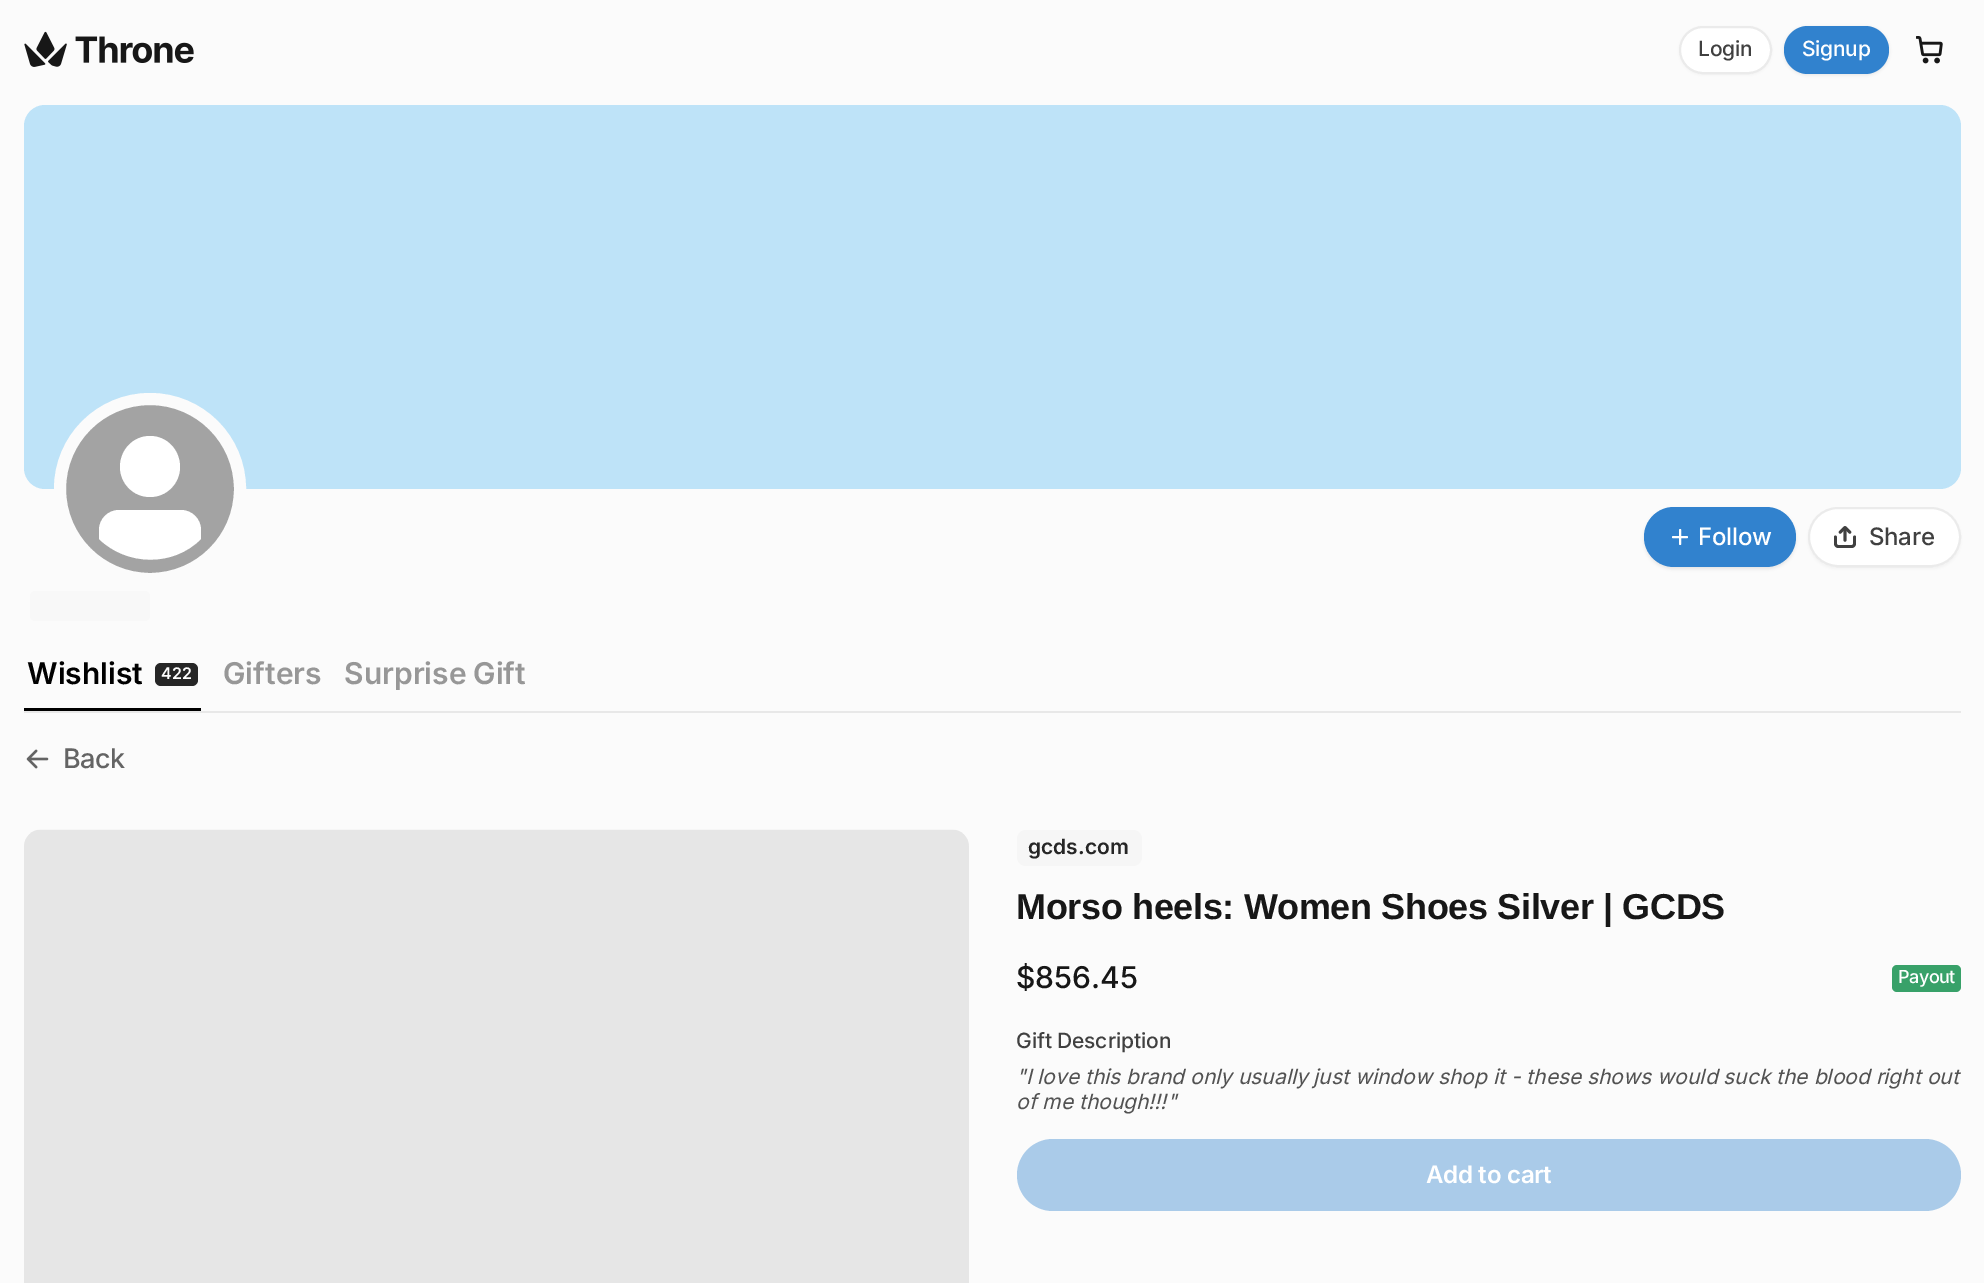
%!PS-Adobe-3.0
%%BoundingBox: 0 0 1984 1283
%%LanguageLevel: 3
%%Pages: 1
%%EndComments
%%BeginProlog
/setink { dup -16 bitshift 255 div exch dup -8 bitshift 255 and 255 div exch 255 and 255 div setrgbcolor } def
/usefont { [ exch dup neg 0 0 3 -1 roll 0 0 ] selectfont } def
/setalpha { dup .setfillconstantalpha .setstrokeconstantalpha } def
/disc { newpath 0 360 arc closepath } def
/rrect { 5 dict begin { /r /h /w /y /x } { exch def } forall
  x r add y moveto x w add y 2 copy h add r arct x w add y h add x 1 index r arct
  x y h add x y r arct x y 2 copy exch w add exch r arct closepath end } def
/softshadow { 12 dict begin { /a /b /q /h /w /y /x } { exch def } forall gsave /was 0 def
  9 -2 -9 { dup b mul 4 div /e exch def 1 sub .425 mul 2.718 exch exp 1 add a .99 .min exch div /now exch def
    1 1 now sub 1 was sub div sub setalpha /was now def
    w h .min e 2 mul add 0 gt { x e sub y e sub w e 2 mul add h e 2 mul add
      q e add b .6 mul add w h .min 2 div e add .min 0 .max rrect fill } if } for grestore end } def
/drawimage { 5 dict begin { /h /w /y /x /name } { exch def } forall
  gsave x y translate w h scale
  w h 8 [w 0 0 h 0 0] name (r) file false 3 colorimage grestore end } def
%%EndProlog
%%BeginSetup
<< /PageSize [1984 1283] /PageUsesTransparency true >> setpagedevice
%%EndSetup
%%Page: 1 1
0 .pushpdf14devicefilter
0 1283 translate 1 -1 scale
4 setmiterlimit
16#FBFBFB setink
0 0 1984 1283 rectfill
(img1.raw) 24 31 170 36 drawimage
16#000000 setink
1679 27 93 48 24 1.5 0.04 softshadow
16#FFFFFF setink
1679 26 93 48 24 rrect fill
0.08 setalpha
16#000000 setink
2 setlinewidth
1680 27 91 46 23 rrect stroke
/Inter-Medium 21 usefont
1 setalpha
16#404040 setink
1698 56 moveto -0.25 0 (Login) ashow
16#000000 setink
1784 27 105 48 24 1.5 0.08 softshadow
16#3182CE setink
1784 26 105 48 24 rrect fill
16#FFFFFF setink
1802 56 moveto -0.25 0 (Signup) ashow
(img2.raw) 1916 36 27 28 drawimage
16#BEE3F8 setink
24 105 1937 384 21 rrect fill
16#A3A3A3 setink
150 489 90 disc gsave fill grestore
16#FBFBFB setink
12 setlinewidth
stroke
16#FFFFFF setink
201 539 moveto 173 567 127 566 99 539 curveto 99 530 lineto 99 519 108 510 119 510 curveto 181 510 lineto 192 510 201 519 201 530 curveto closepath fill
150 436 moveto 133 436 120 450 120 467 curveto 120 483 133 497 150 497 curveto 167 497 180 483 180 467 curveto 180 450 167 436 150 436 curveto fill
16#000000 setink
1644 509 152 60 30 1.5 0.08 softshadow
16#3182CE setink
1644 507 152 60 30 rrect fill
16#FFFFFF setink
2 setlinewidth
1 setlinecap
1 setlinejoin
1680 530 moveto 1680 544 lineto 1673 537 moveto 1687 537 lineto stroke
/Inter-Medium 24 usefont
1698 545 moveto -0.25 0 (Follow) ashow
16#000000 setink
1808 509 153 60 30 1.5 0.04 softshadow
16#FFFFFF setink
1808 507 153 60 30 rrect fill
0.08 setalpha
16#000000 setink
0 setlinecap
0 setlinejoin
1809 508 151 58 29 rrect stroke
1 setalpha
(img3.raw) 1834 526 22 22 drawimage
16#404040 setink
1869 545 moveto -0.25 0 (Share) ashow
16#F8F8F8 setink
30 591 120 30 5 rrect fill
16#E8E8E8 setink
24 711 1937 2 rectfill
16#000000 setink
24 708 177 3 rectfill
/Inter-SemiBold 30 usefont
27 684 moveto (Wishlist) show
16#262626 setink
155 663 43 23 6 rrect fill
/Inter-SemiBold 16 usefont
16#FFFFFF setink
161 679 moveto (422) show
/Inter-SemiBold 30 usefont
16#979797 setink
223 684 moveto (Gifters) show
344 684 moveto -1 0 32 (Surprise Gift) widthshow
(img4.raw) 26 749 23 20 drawimage
/Inter-Medium 27 usefont
16#646464 setink
63 768 moveto -0.5 0 (Back) ashow
(img5.raw) 24 829 945 454 drawimage
16#F6F6F6 setink
1017 830 125 36 9 rrect fill
/Inter-SemiBold 21 usefont
16#262626 setink
1028 854 moveto (gcds.com) show
/LiberationSans-Bold 36 usefont
16#171717 setink
1016 919 moveto -0.35 0 (Morso heels: Women Shoes Silver | GCDS) ashow
/Inter-Medium 30 usefont
1016 988 moveto ($856.45) show
16#38A169 setink
1892 965 69 27 5 rrect fill
/Inter-Medium 18 usefont
16#FFFFFF setink
1898 983 moveto -0.5 0 (Payout) ashow
/Inter-Medium 21 usefont
16#404040 setink
1016 1048 moveto -1 0 32 (Gift Description) widthshow
/Inter-Italic 21 usefont
16#525252 setink
1016 1084 moveto ("I love this brand only usually just window shop it - these shows would suck the blood right out) show
1016 1109 moveto (of me though!!!") show
16#AACBE9 setink
1017 1139 944 72 36 rrect fill
/Inter-SemiBold 24 usefont
16#FFFFFF setink
1426 1183 moveto -0.25 0 (Add to cart) ashow
.poppdf14devicefilter showpage
%%EOF
